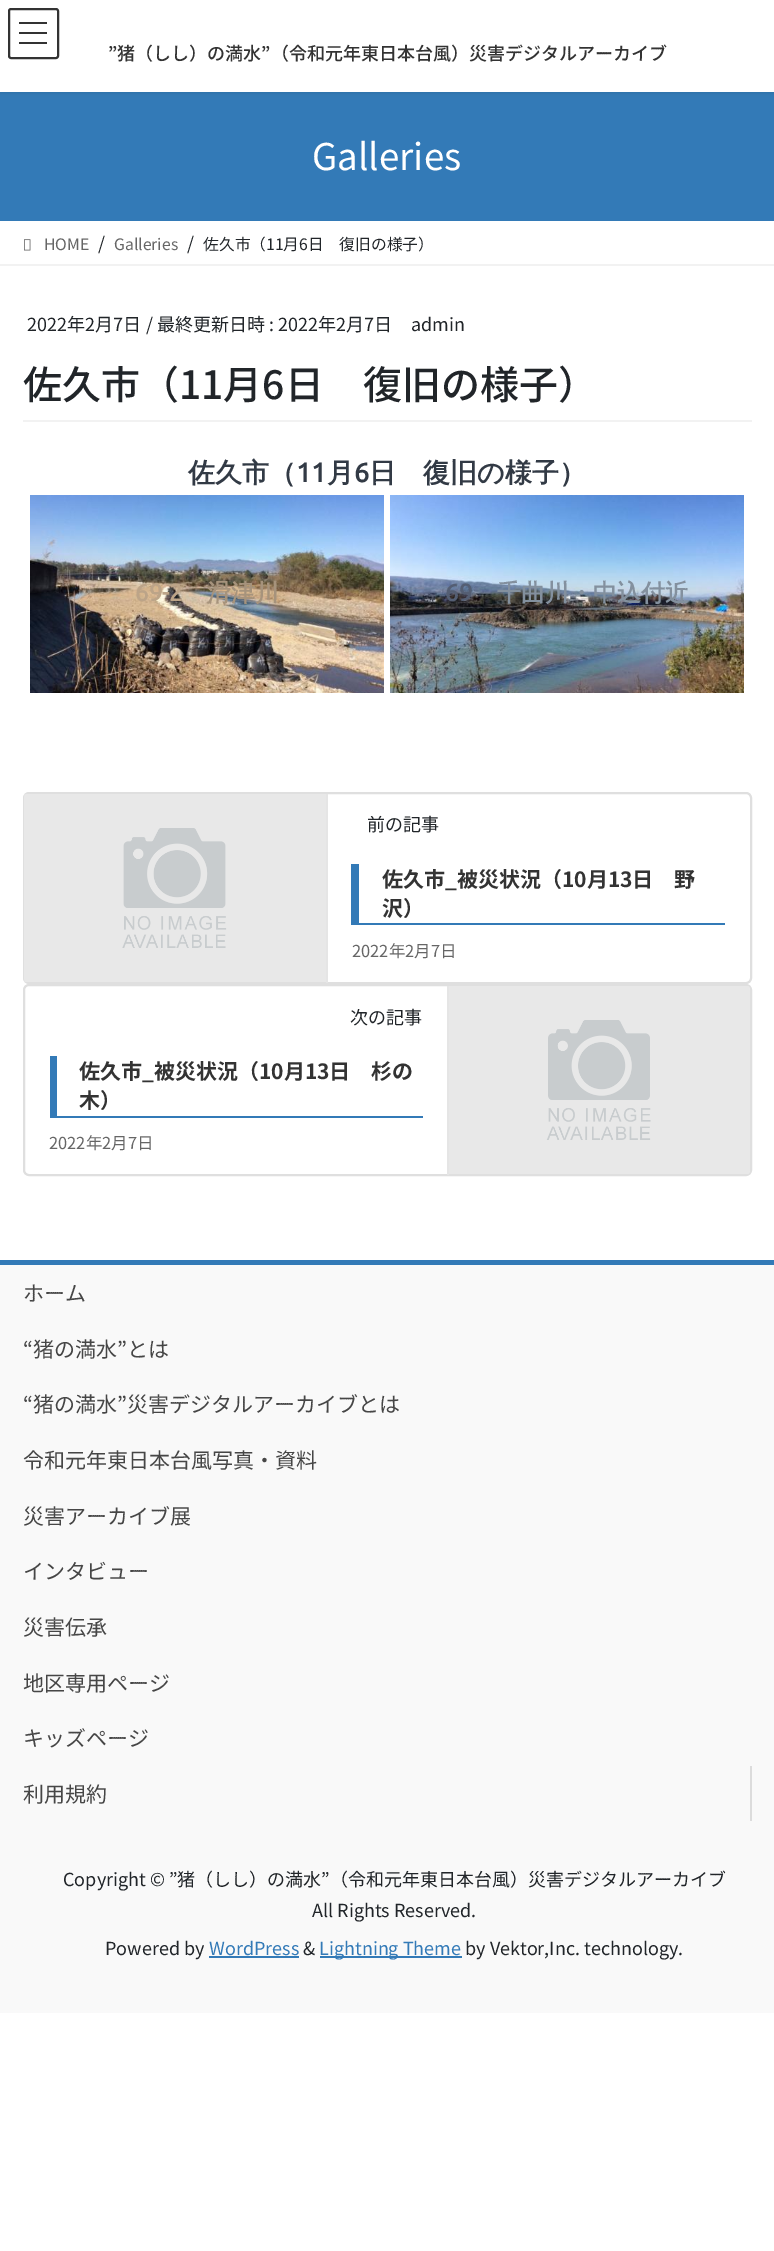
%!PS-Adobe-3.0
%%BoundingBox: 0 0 774 2251
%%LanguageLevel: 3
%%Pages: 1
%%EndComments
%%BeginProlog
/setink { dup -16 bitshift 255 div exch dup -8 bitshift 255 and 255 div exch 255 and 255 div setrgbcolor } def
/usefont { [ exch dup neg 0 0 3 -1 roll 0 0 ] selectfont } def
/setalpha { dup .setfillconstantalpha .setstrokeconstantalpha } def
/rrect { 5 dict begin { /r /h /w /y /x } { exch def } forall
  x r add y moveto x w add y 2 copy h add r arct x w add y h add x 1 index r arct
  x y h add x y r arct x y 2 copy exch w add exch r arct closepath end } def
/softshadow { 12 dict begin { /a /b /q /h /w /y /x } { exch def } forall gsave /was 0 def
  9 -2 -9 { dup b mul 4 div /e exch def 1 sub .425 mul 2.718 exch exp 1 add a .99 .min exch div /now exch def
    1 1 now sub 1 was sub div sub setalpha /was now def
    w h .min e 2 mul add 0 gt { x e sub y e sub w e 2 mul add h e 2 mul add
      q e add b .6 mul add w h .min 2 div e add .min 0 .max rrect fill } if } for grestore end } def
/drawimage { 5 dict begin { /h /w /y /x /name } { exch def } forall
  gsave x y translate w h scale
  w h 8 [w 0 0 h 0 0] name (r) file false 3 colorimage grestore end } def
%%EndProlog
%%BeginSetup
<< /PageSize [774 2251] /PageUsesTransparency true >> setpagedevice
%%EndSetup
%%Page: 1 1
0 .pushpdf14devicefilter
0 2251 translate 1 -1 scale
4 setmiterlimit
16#FFFFFF setink
0 0 774 2251 rectfill
16#337AB7 setink
0 92 774 129 rectfill
16#000000 setink
0 2 774 91 0 2 0.1 softshadow
[
    [0 0 774 92 16#FFFFFF]
    [19 22 28 2 16#333333]
    [19 32 28 2 16#333333]
    [19 42 28 2 16#333333]
] { aload pop setink rectfill } forall
2 setlinewidth
9 9 49 49 2 rrect stroke
/NotoSansJP-Medium 18 usefont
108 60 moveto (”猪（しし）の満水”（令和元年東日本台風）災害デジタルアーカイブ) show
/NotoSansJP-Regular 36.75 usefont
16#FFFFFF setink
312 170 moveto (Galleries) show
16#F2F2F2 setink
0 264 774 2 rectfill
(img1.raw) 24 239 7 12 drawimage
/NotoSansJP-Regular 15.75 usefont
16#666666 setink
44 250 moveto (HOME) show
/NotoSansJP-Regular 18 usefont
16#212529 setink
98 250 moveto (/) show
/NotoSansJP-Regular 15.75 usefont
16#666666 setink
114 250 moveto (Galleries) show
/NotoSansJP-Regular 18 usefont
16#212529 setink
187 250 moveto (/) show
/NotoSansJP-Regular 15.75 usefont
203 250 moveto (佐久市（11月6日　復旧の様子）) show
16#F2F2F2 setink
23 420 729 2 rectfill
/NotoSansJP-Regular 18 usefont
16#212529 setink
[
    [(2022年2月7日) 27 331]
    [(/ 最終更新日時 : 2022年2月7日) 146 331]
    [(admin) 411 331]
] { aload pop moveto show } forall
/NotoSansJP-Medium 39 usefont
23 399 moveto (佐久市（11月6日　復旧の様子）) show
/WenQuanYiZenHei-Bold 27 usefont
16#323A45 setink
188 482 moveto (佐久市（) show
/Ubuntu-Bold 27 usefont
296 482 moveto (11) show
/WenQuanYiZenHei-Bold 27 usefont
327 482 moveto (月) show
/Ubuntu-Bold 27 usefont
354 482 moveto (6) show
/WenQuanYiZenHei-Bold 27 usefont
369 482 moveto (日　復旧の様子）) show
(img2.raw) 30 495 354 198 drawimage
/Ubuntu-Bold 24 usefont
16#BCA488 setink
135 601 moveto (69-2) show
/WenQuanYiZenHei-Bold 24 usefont
16#A6937C setink
207 601 moveto (滑津川) show
(img3.raw) 390 495 354 198 drawimage
/Ubuntu-Bold 24 usefont
16#545E73 setink
445 601 moveto (69) show
/WenQuanYiZenHei-Bold 24 usefont
16#83909E setink
497 601 moveto (千曲川・中込付近) show
16#DFDFDF setink
24 793 727 190 5 rrect stroke
(img4.raw) 24 794 302 188 drawimage
16#E5E5E5 setink
326 794 2 189 rectfill
/NotoSansJP-Regular 18 usefont
16#212529 setink
367 831 moveto (前の記事) show
16#337AB7 setink
351 923 374 2 rectfill
351 864 8 60 rectfill
/NotoSansJP-Bold 21 usefont
16#333333 setink
382 887 moveto (佐久市_被災状況（10月13日　野) show
382 916 moveto (沢）) show
/NotoSansJP-Regular 16.5 usefont
16#666666 setink
352 957 moveto (2022年2月7日) show
16#DFDFDF setink
24 985 727 190 5 rrect stroke
/NotoSansJP-Regular 18 usefont
16#212529 setink
350 1024 moveto (次の記事) show
16#337AB7 setink
50 1116 373 2 rectfill
50 1056 7 62 rectfill
/NotoSansJP-Bold 21 usefont
16#333333 setink
79 1079 moveto (佐久市_被災状況（10月13日　杉の) show
79 1108 moveto (木）) show
/NotoSansJP-Regular 16.5 usefont
16#666666 setink
49 1149 moveto (2022年2月7日) show
(img5.raw) 449 986 301 188 drawimage
[
    [447 986 2 189 16#E5E5E5]
    [0 1265 774 748 16#F9F9F9]
    [0 1260 774 5 16#337AB7]
] { aload pop setink rectfill } forall
/NotoSansJP-Regular 21 usefont
16#464646 setink
[
    [(ホーム) 23 1301]
    [(“猪の満水”とは) 23 1357]
    [(“猪の満水”災害デジタルアーカイブとは) 23 1412]
    [(令和元年東日本台風写真・資料) 23 1468]
    [(災害アーカイブ展) 23 1524]
    [(インタビュー) 23 1579]
    [(災害伝承) 23 1635]
    [(地区専用ページ) 23 1691]
    [(キッズページ) 23 1746]
] { aload pop moveto show } forall
16#DCDCDC setink
750 1766 2 55 rectfill
16#464646 setink
23 1802 moveto (利用規約) show
/NotoSansJP-Regular 18 usefont
16#212529 setink
[
    [(Copyright © ”猪（しし）の満水”（令和元年東日本台風）災害デジタルアーカイブ) 63 1886]
    [(All Rights Reserved.) 312 1917]
    [(Powered by) 105 1955]
] { aload pop moveto show } forall
16#337AB7 setink
209 1955 moveto (WordPress) show
209 1956 90 2 rectfill
16#212529 setink
303 1955 moveto (&) show
16#337AB7 setink
320 1956 142 2 rectfill
319 1955 moveto (Lightning Theme) show
16#212529 setink
465 1955 moveto (by Vektor,Inc. technology.) show
.poppdf14devicefilter showpage
%%EOF
